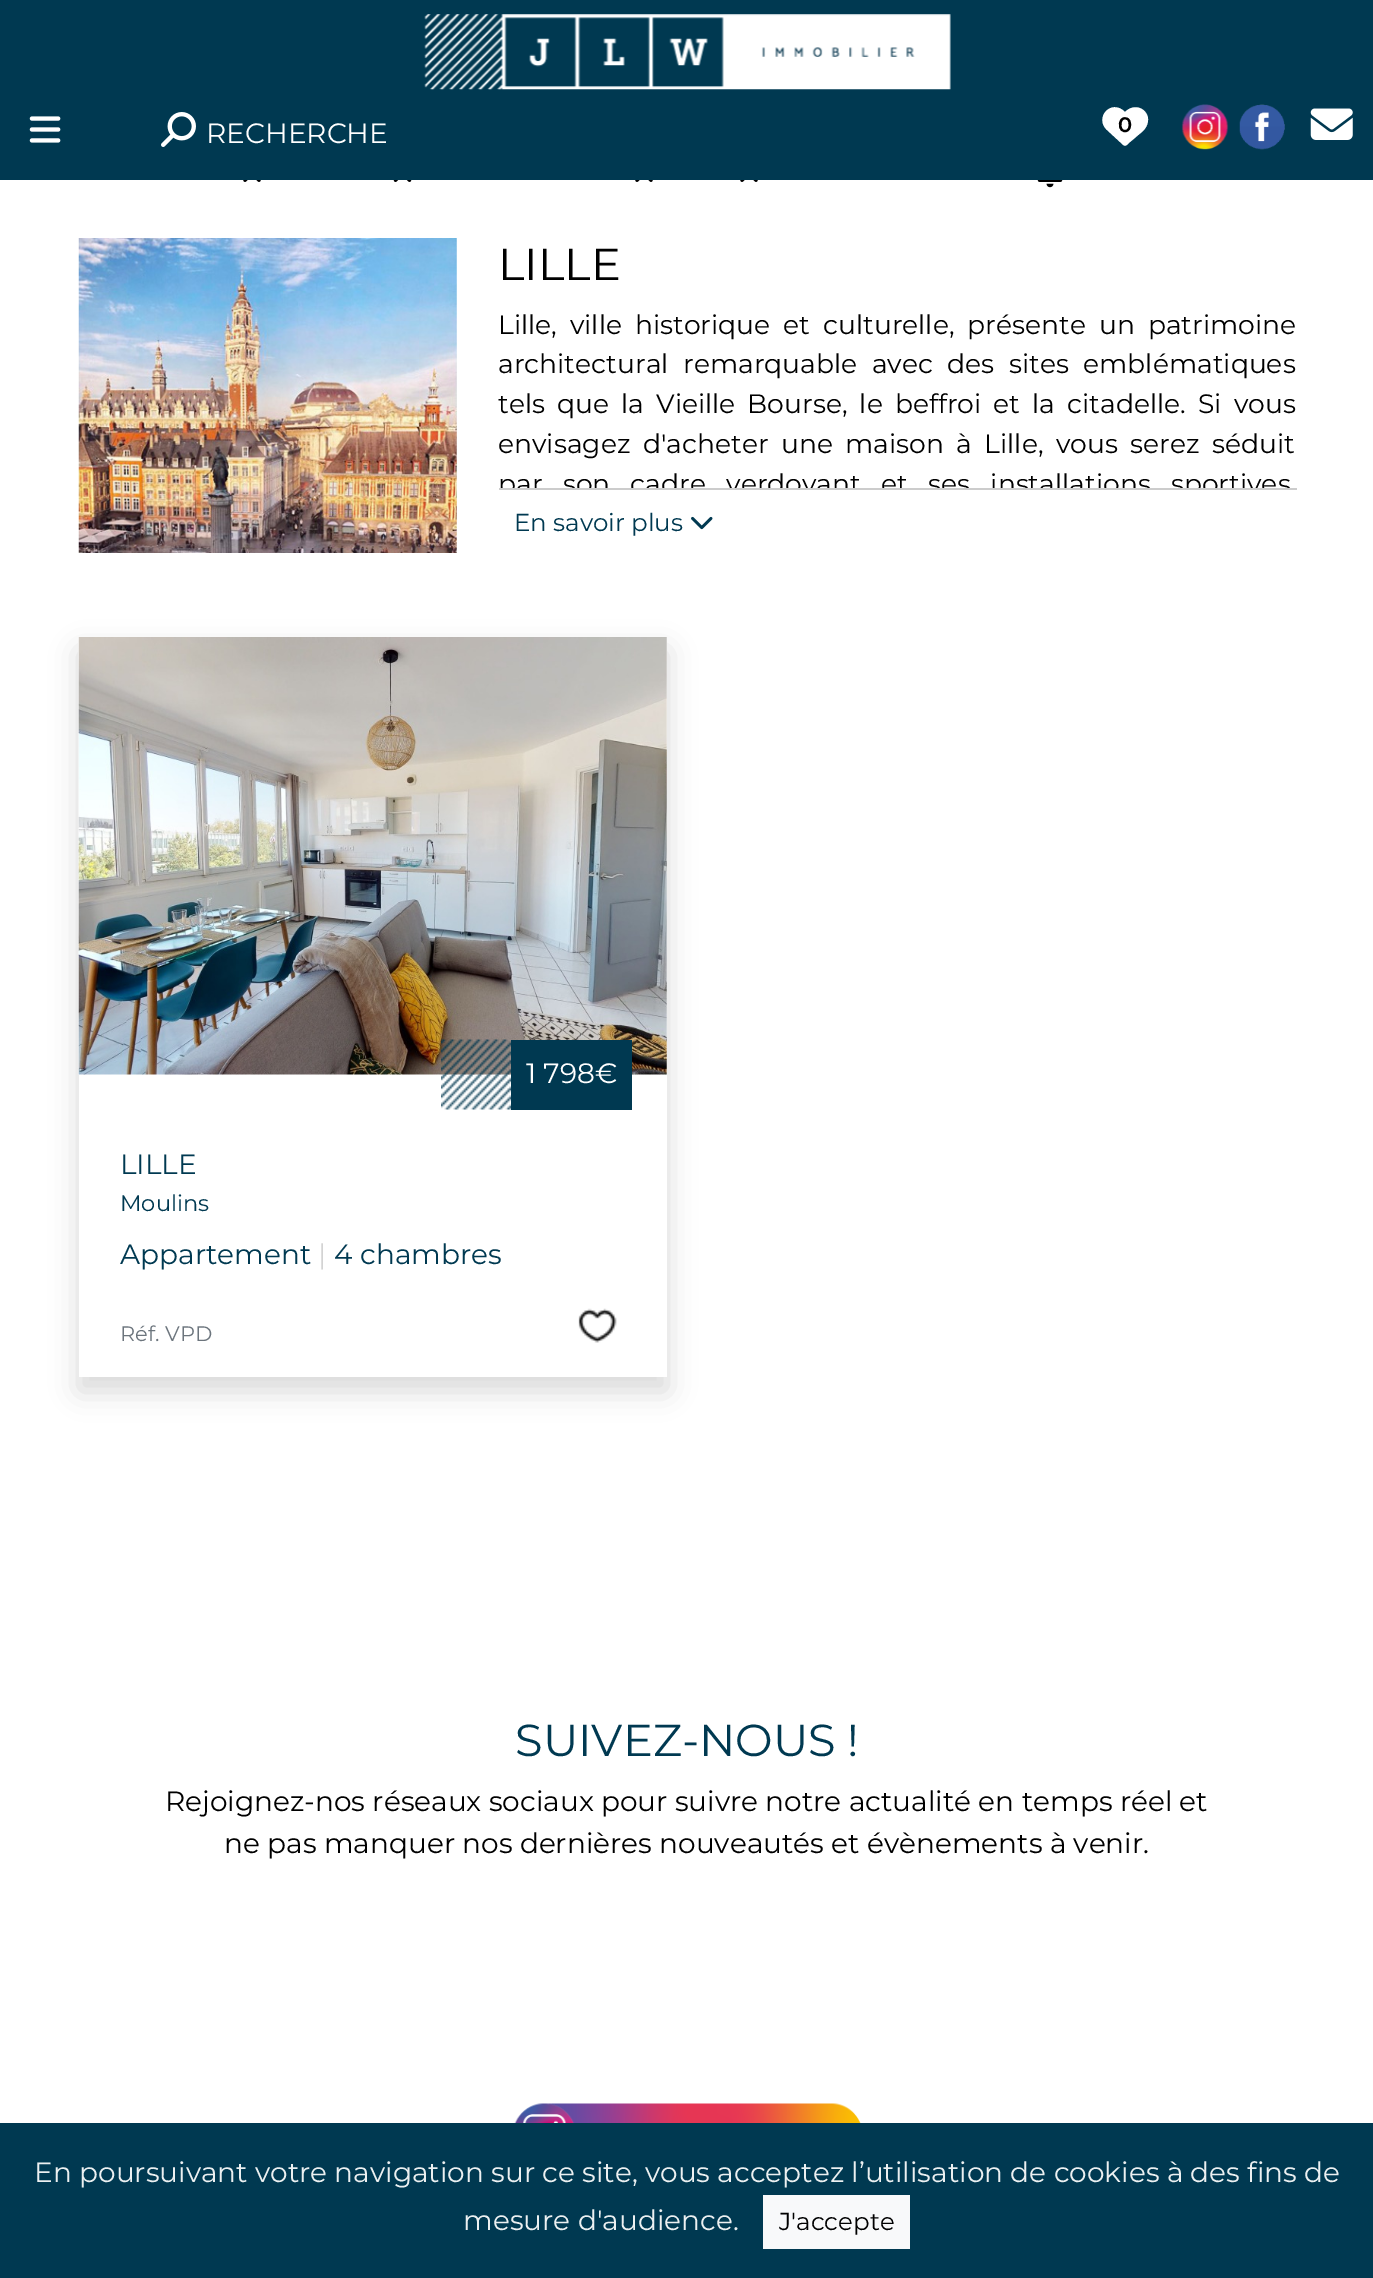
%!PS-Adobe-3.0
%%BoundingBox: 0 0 1373 2278
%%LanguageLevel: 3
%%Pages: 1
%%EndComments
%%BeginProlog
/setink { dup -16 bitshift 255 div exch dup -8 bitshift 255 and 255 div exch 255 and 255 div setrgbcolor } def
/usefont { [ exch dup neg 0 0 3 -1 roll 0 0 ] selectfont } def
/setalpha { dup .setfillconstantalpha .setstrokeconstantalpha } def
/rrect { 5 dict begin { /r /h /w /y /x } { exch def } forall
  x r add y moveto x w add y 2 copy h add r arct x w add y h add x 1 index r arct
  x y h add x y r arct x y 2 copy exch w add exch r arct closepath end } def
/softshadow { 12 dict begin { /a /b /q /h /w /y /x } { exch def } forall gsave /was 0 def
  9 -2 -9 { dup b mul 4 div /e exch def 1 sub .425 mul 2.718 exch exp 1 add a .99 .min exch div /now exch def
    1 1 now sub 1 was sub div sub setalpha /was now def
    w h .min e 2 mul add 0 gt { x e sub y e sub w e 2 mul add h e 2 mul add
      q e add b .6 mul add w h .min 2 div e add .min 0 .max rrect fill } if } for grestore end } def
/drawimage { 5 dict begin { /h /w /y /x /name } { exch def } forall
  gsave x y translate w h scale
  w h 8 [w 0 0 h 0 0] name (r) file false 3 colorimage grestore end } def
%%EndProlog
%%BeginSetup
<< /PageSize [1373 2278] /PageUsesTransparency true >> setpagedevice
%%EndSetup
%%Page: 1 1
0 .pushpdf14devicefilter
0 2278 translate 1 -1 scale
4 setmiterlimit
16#FFFFFF setink
0 0 1373 2278 rectfill
16#003951 setink
0 0 1373 180 rectfill
(img1.raw) 424 14 527 76 drawimage
(img2.raw) 29 116 32 27 drawimage
(img3.raw) 161 112 35 35 drawimage
/Montserrat-Regular 28 usefont
16#FFFFFF setink
206 143 moveto (RECHERCHE) show
1107 130 moveto 1120 142 lineto 1125 147 1125 147 1130 142 curveto 1136 137 lineto 1139 134 1144 131 1146 127 curveto 1154 113 1137 100 1125 112 curveto 1111 98 1094 118 1107 130 curveto closepath fill
/Montserrat-SemiBold 21 usefont
16#000000 setink
1118 132 moveto (0) show
(img4.raw) 1181 104 48 46 drawimage
(img5.raw) 1239 104 46 46 drawimage
(img6.raw) 1310 108 43 32 drawimage
(img7.raw) 243 180 18 2 drawimage
(img8.raw) 393 180 19 2 drawimage
(img7.raw) 635 180 18 2 drawimage
(img7.raw) 740 180 18 2 drawimage
(img9.raw) 1037 180 26 8 drawimage
(img10.raw) 78 238 379 315 drawimage
/Montserrat-Regular 44.75 usefont
498 280 moveto (LILLE) show
16#CCCCCC setink
499 488 798 2 rectfill
/Montserrat-Regular 26.6 usefont
16#000000 setink
498 334 moveto 6 0 32 (Lille, ville historique et culturelle, présente un patrimoine) widthshow
498 373 moveto 7.5 0 32 (architectural remarquable avec des sites emblématiques) widthshow
498 413 moveto 5.1 0 32 (tels que la Vieille Bourse, le beffroi et la citadelle. Si vous) widthshow
498 453 moveto 5.5 0 32 (envisagez d'acheter une maison à Lille, vous serez séduit) widthshow
gsave
499 306 798 182 rectclip
498 493 moveto 13.25 0 32 (par son cadre verdoyant et ses installations sportives) widthshow
grestore
/Montserrat-Regular 24.5 usefont
16#003951 setink
514 531 moveto (En savoir plus) show
(img11.raw) 691 516 22 14 drawimage
16#000000 setink
79 651 588 740 0 14 0.15 softshadow
16#FFFFFF setink
79 637 588 740 rectfill
(img12.raw) 78 637 589 438 drawimage
(img13.raw) 441 1039 70 71 drawimage
16#003951 setink
511 1040 121 70 rectfill
/Montserrat-Regular 28 usefont
16#FFFFFF setink
526 1083 moveto (1 798€) show
16#003951 setink
120 1174 moveto (LILLE) show
/Montserrat-Regular 22.5 usefont
120 1211 moveto (Moulins) show
/Montserrat-Regular 28 usefont
120 1264 moveto (Appartement) show
16#D3D3D3 setink
318 1264 moveto (|) show
16#003951 setink
334 1264 moveto (4 chambres) show
/Montserrat-Regular 21 usefont
16#6C757D setink
120 1341 moveto (Réf. VPD) show
(img14.raw) 578 1308 39 35 drawimage
/Montserrat-Regular 44.75 usefont
16#003951 setink
515 1756 moveto (SUIVEZ-NOUS !) show
/Montserrat-Regular 28 usefont
16#000000 setink
165 1811 moveto (Rejoignez-nos réseaux sociaux pour suivre notre actualité en temps réel et) show
224 1853 moveto (ne pas manquer nos dernières nouveautés et évènements à venir.) show
(img15.raw) 514 2103 347 20 drawimage
16#003951 setink
0 2123 1373 155 rectfill
16#ECF0F1 setink
34 2182 moveto (En poursuivant votre navigation sur ce site, vous acceptez l’utilisation de cookies à des fins de) show
463 2230 moveto (mesure d'audience.) show
16#F8F9FA setink
763 2195 147 54 rectfill
/Montserrat-Regular 24.5 usefont
16#000000 setink
779 2230 moveto (J'accepte) show
.poppdf14devicefilter showpage
%%EOF
